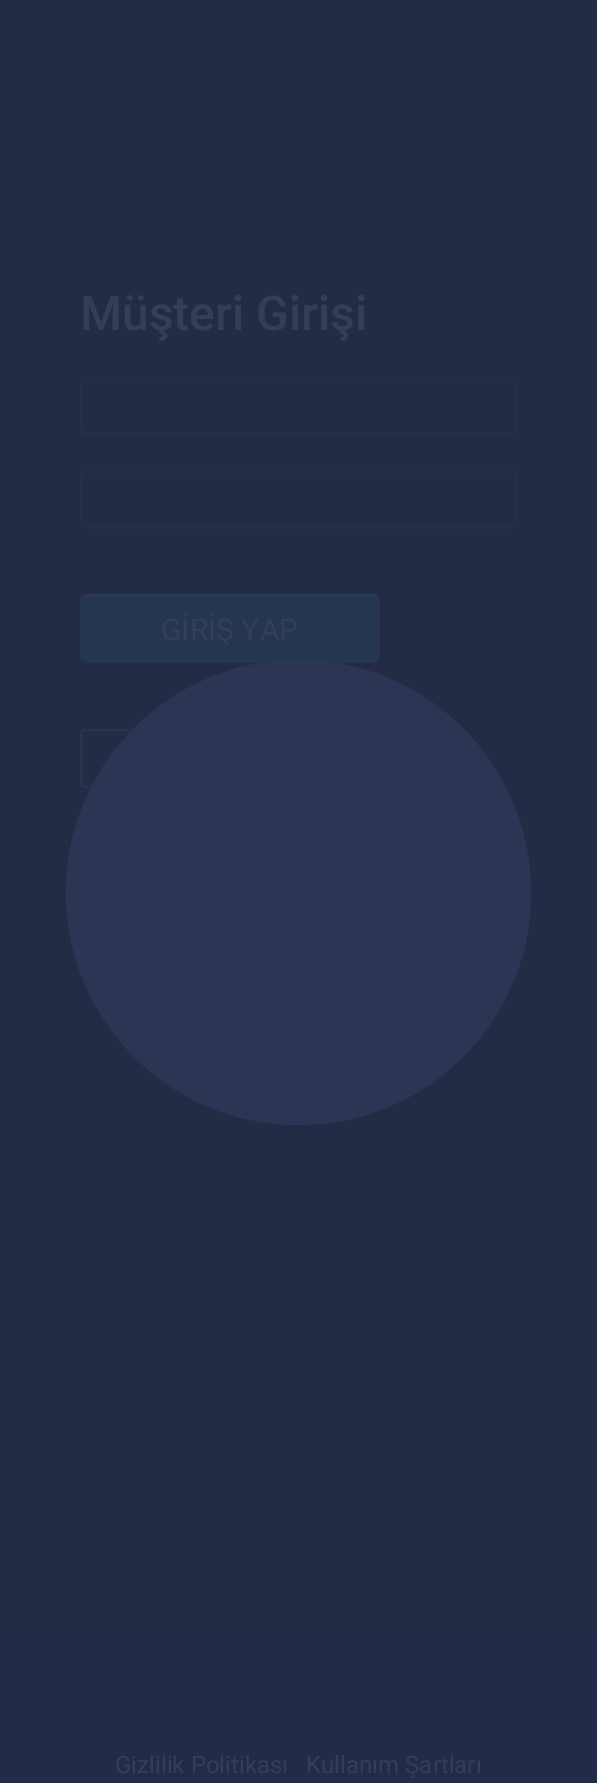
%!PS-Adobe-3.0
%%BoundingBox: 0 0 597 1783
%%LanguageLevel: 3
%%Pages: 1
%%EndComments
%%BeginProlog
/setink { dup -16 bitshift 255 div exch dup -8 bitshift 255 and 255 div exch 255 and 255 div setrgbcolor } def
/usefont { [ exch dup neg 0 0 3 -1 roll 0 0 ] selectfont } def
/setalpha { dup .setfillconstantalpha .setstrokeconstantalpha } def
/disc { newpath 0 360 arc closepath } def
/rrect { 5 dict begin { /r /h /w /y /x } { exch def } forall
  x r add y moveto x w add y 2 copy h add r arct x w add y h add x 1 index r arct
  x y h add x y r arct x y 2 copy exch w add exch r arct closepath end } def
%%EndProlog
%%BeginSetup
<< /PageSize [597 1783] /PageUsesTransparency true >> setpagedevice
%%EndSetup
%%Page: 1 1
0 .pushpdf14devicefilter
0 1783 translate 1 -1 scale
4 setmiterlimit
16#242C45 setink
0 0 597 1783 rectfill
/Roboto-Medium 48 usefont
16#363E56 setink
80 330 moveto (Müşteri Girişi) show
16#262F4A setink
2 setlinewidth
81 379 436 55 5 rrect stroke
81 472 436 55 5 rrect stroke
16#243650 setink
80 594 300 69 8 rrect fill
0.5 setalpha
16#363E56 setink
87 596 moveto 372 596 lineto 376 596 380 599 380 603 curveto 380 602 lineto 380 598 376 594 372 594 curveto 88 594 lineto 84 594 80 598 80 602 curveto 80 603 lineto 80 599 83 596 87 596 curveto closepath fill
/Roboto-Regular 30 usefont
1 setalpha
161 640 moveto (GİRİŞ YAP) show
16#243650 setink
81 730 298 57 4 rrect stroke
16#2C3654 setink
298.5 892.5 232.5 disc fill
16#222B48 setink
0 1640 597 143 rectfill
/Roboto-Regular 24 usefont
16#363E56 setink
115 1773 moveto (Gizlilik Politikası) show
306 1773 moveto (Kullanım Şartları) show
.poppdf14devicefilter showpage
%%EOF
